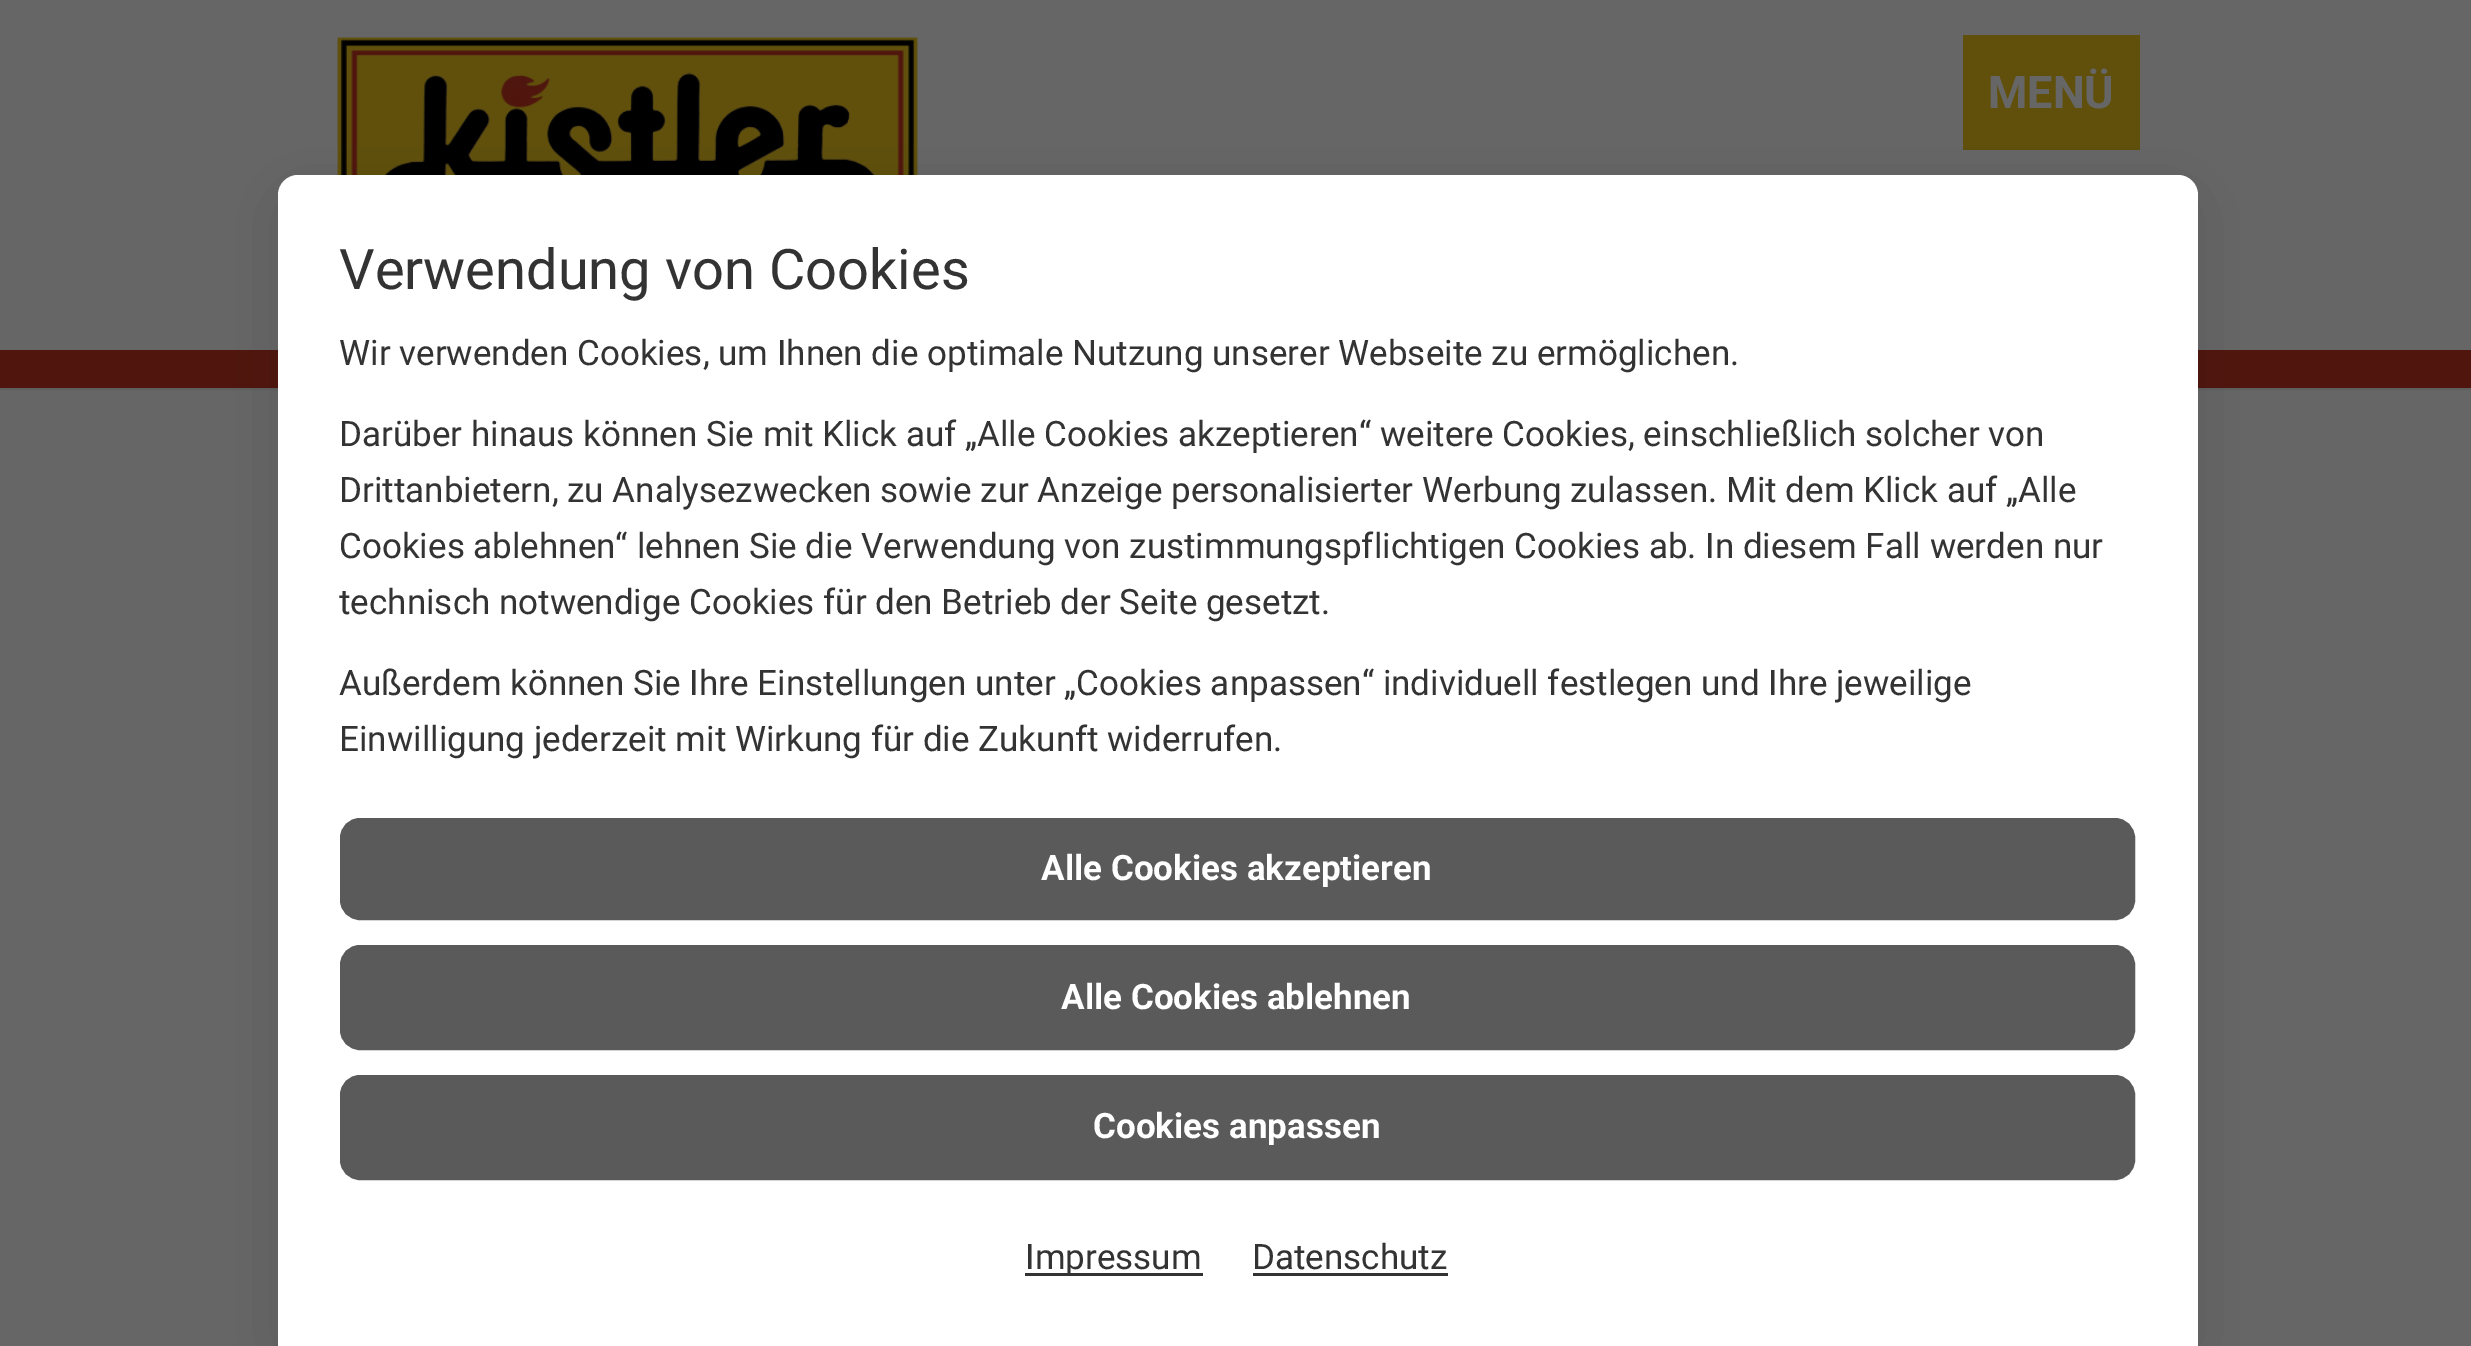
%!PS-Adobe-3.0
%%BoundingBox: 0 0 2471 1346
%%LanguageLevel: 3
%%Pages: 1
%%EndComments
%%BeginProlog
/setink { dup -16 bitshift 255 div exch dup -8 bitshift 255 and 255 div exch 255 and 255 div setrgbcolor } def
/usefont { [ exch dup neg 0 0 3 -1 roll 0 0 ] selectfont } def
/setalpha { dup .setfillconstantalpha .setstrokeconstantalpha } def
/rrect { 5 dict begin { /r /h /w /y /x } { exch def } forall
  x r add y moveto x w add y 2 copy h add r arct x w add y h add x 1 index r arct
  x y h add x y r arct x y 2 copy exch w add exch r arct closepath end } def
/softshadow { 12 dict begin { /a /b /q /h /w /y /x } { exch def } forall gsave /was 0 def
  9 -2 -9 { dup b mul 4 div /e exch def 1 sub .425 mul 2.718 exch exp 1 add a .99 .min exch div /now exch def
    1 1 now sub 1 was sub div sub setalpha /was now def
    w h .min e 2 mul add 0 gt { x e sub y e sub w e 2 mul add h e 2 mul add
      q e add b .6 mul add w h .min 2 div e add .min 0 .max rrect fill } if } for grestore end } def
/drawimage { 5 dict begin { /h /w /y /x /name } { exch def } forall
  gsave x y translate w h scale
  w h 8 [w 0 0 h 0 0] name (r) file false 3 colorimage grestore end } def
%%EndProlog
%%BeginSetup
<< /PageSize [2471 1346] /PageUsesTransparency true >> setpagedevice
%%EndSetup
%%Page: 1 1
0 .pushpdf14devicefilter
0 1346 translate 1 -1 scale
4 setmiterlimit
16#666666 setink
0 0 2471 1346 rectfill
(img1.raw) 337 37 581 138 drawimage
16#60500C setink
1963 35 177 115 rectfill
/Roboto-Bold 45 usefont
16#666666 setink
1988 108 moveto (MENÜ) show
16#000000 setink
0 353 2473 37 0 1 0.1 softshadow
16#50160E setink
0 350 2471 38 rectfill
16#000000 setink
278 190 1920 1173 20 35 0.1 softshadow
16#FFFFFF setink
298 175 moveto 2178 175 lineto 2189 175 2198 184 2198 195 curveto 2198 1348 lineto 278 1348 lineto 278 195 lineto 278 184 287 175 298 175 curveto closepath fill
/Roboto-Regular 56 usefont
16#333333 setink
339 289 moveto (Verwendung von Cookies) show
/Roboto-Regular 35 usefont
[
    [(Wir verwenden Cookies, um Ihnen die optimale Nutzung unserer Webseite zu ermöglichen.) 339 365]
    [(Darüber hinaus können Sie mit Klick auf „Alle Cookies akzeptieren“ weitere Cookies, einschließlich solcher von) 339 446]
    [(Drittanbietern, zu Analysezwecken sowie zur Anzeige personalisierter Werbung zulassen. Mit dem Klick auf „Alle) 339 502]
    [(Cookies ablehnen“ lehnen Sie die Verwendung von zustimmungspflichtigen Cookies ab. In diesem Fall werden nur) 339 558]
    [(technisch notwendige Cookies für den Betrieb der Seite gesetzt.) 339 614]
    [(Außerdem können Sie Ihre Einstellungen unter „Cookies anpassen“ individuell festlegen und Ihre jeweilige) 339 695]
    [(Einwilligung jederzeit mit Wirkung für die Zukunft widerrufen.) 339 751]
] { aload pop moveto show } forall
16#5A5A5A setink
341.5 819.5 1792 99 18.5 rrect gsave fill grestore
3 setlinewidth
stroke
/Roboto-Bold 35 usefont
16#FFFFFF setink
1041 880 moveto (Alle Cookies akzeptieren) show
16#5A5A5A setink
341.5 946.5 1792 102 18.5 rrect gsave fill grestore
stroke
16#FFFFFF setink
1061 1009 moveto (Alle Cookies ablehnen) show
16#5A5A5A setink
341.5 1076.5 1792 102 18.5 rrect gsave fill grestore
stroke
16#FFFFFF setink
1093 1138 moveto (Cookies anpassen) show
16#333333 setink
1025 1273 178 3 rectfill
/Roboto-Regular 35 usefont
1025 1269 moveto (Impressum) show
1252 1269 moveto (Datenschutz) show
1253 1273 195 3 rectfill
.poppdf14devicefilter showpage
%%EOF
